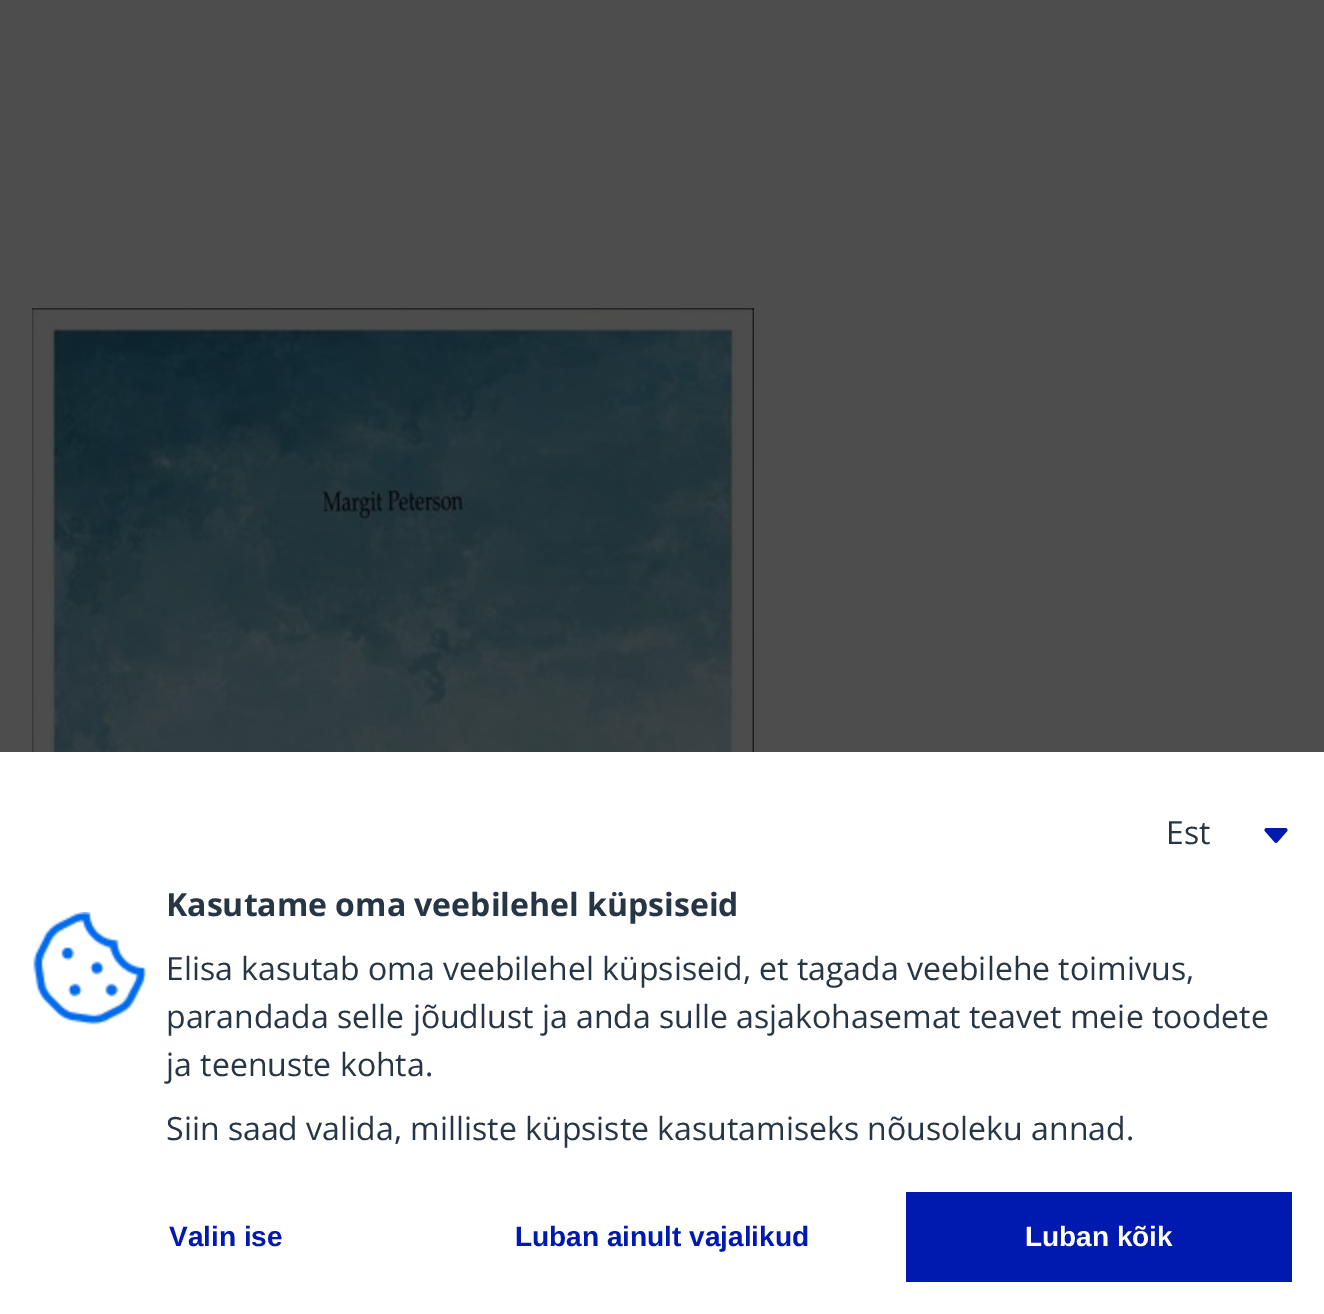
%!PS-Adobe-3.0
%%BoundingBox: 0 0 1324 1314
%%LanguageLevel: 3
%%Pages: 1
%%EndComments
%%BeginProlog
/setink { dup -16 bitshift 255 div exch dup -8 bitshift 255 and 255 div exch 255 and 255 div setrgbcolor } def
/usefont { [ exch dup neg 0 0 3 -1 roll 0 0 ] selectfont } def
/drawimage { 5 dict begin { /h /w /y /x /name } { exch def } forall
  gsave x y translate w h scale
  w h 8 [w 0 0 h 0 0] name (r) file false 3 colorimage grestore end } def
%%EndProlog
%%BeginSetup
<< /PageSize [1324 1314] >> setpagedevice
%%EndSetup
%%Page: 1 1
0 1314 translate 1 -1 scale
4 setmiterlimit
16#4D4D4D setink
0 0 1324 1314 rectfill
(img1.raw) 32 308 722 444 drawimage
16#FFFFFF setink
0 752 1324 562 rectfill
/OpenSans-Regular 32 usefont
16#273645 setink
1166 844 moveto (Est) show
(img2.raw) 1264 828 24 15 drawimage
(img3.raw) 33 912 113 113 drawimage
/OpenSans-Bold 32 usefont
166 916 moveto (Kasutame oma veebilehel küpsiseid) show
/OpenSans-Regular 32 usefont
[
    [(Elisa kasutab oma veebilehel küpsiseid, et tagada veebilehe toimivus,) 166 980]
    [(parandada selle jõudlust ja anda sulle asjakohasemat teavet meie toodete) 166 1028]
    [(ja teenuste kohta.) 166 1076]
    [(Siin saad valida, milliste küpsiste kasutamiseks nõusoleku annad.) 166 1140]
] { aload pop moveto show } forall
/LiberationSans-Bold 28 usefont
16#0019AF setink
169 1246 moveto (Valin ise) show
515 1246 moveto (Luban ainult vajalikud) show
906 1192 386 90 rectfill
16#FFFFFF setink
1025 1246 moveto (Luban kõik) show
showpage
%%EOF
